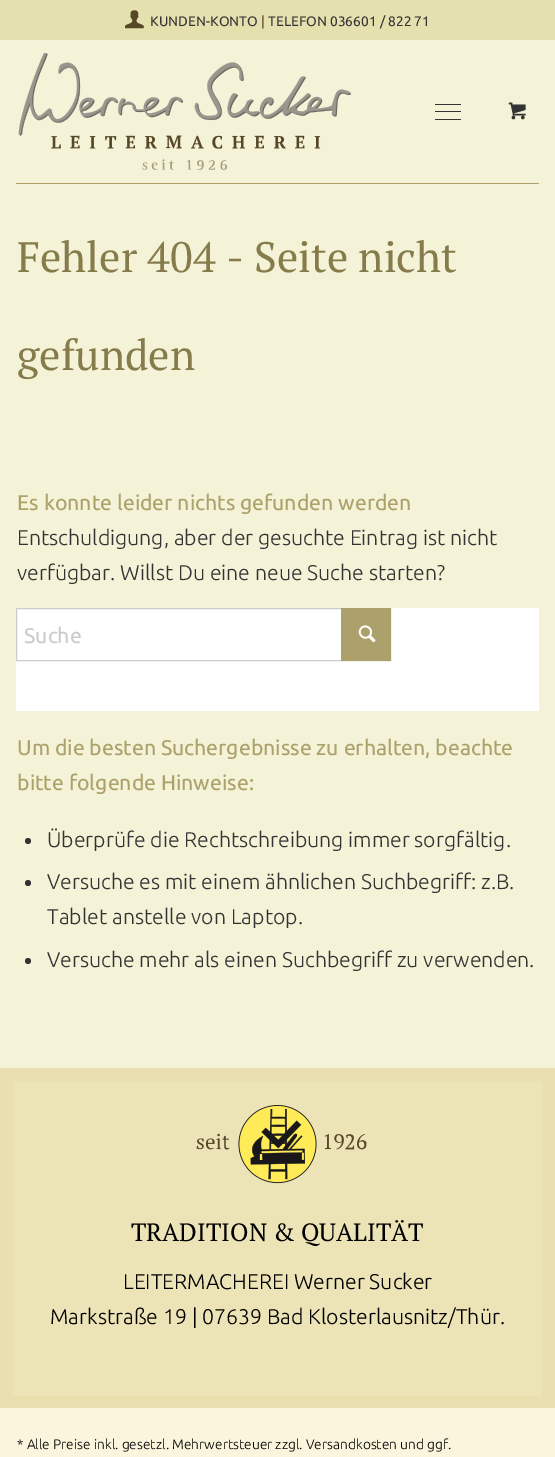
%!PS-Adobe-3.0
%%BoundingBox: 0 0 555 1457
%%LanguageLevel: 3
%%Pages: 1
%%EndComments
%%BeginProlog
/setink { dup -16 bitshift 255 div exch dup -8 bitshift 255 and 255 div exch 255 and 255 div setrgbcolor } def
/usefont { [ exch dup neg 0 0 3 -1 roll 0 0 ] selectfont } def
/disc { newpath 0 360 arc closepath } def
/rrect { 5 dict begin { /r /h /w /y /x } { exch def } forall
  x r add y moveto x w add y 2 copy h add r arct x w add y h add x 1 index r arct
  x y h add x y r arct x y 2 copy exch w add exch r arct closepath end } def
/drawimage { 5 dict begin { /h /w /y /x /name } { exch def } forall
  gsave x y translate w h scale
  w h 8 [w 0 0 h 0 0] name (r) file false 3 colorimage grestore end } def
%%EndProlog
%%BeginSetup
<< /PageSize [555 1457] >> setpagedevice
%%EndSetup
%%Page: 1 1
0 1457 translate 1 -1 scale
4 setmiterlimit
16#F4F2D7 setink
0 0 555 1457 rectfill
16#E5E1AE setink
0 0 555 40 rectfill
(img1.raw) 125 10 19 19 drawimage
/Ubuntu-Regular 13.75 usefont
16#333333 setink
150 26 moveto (KUNDEN-KONTO) show
16#564726 setink
261 26 moveto (|) show
16#333333 setink
268 26 moveto (TELEFON 036601 / 822 71) show
16#ADA16B setink
16 183 523 1 rectfill
(img2.raw) 18 53 333 117 drawimage
16#333333 setink
435 111 26 1 0.5 rrect fill
435 104 26 1 0.5 rrect fill
435 119 26 1 0.5 rrect fill
(img3.raw) 508 102 18 18 drawimage
/PTSerif-Regular 42.5 usefont
16#857B4B setink
17 272 moveto (Fehler 404 - Seite nicht) show
17 370 moveto (gefunden) show
/Ubuntu-Regular 21.25 usefont
16#ADA16B setink
17 510 moveto (Es konnte leider nichts gefunden werden) show
/Ubuntu-Light 21.25 usefont
16#333333 setink
17 545 moveto (Entschuldigung, aber der gesuchte Eintrag ist nicht) show
17 580 moveto (verfügbar. Willst Du eine neue Suche starten?) show
16#FFFFFF setink
16 608 523 103 rectfill
16#CCCCCC setink
16.5 608.5 374 52 rectstroke
/Ubuntu-Regular 21.25 usefont
16#CBCBCB setink
24 643 moveto (Suche) show
16#ADA16B setink
341 608 50 53 rectfill
(img4.raw) 358 625 18 18 drawimage
17 755 moveto (Um die besten Suchergebnisse zu erhalten, beachte) show
17 790 moveto (bitte folgende Hinweise:) show
16#333333 setink
28 841 3 disc fill
/Ubuntu-Light 21.25 usefont
47 847 moveto (Überprüfe die Rechtschreibung immer sorgfältig.) show
28 883 3 disc fill
47 889 moveto (Versuche es mit einem ähnlichen Suchbegriff: z.B.) show
47 924 moveto (Tablet anstelle von Laptop.) show
28 961 3 disc fill
47 967 moveto (Versuche mehr als einen Suchbegriff zu verwenden.) show
16#ECE4B7 setink
6.5 1074.5 moveto 548.5 1074.5 lineto 548.5 1402.5 lineto 6.5 1402.5 lineto closepath gsave fill grestore
16#EAE0AF setink
13 setlinewidth
stroke
(img5.raw) 196 1105 171 79 drawimage
/PTSerif-Regular 25 usefont
16#000000 setink
131 1241 moveto (TRADITION & QUALITÄT) show
/Ubuntu-Light 21.25 usefont
123 1289 moveto (LEITERMACHEREI Werner Sucker) show
50 1324 moveto (Markstraße 19 | 07639 Bad Klosterlausnitz/Thür.) show
16#FAF5DC setink
0 1408 555 49 rectfill
/Ubuntu-Light 13.75 usefont
16#000000 setink
17 1449 moveto (* Alle Preise inkl. gesetzl. Mehrwertsteuer zzgl. Versandkosten und ggf.) show
showpage
%%EOF
